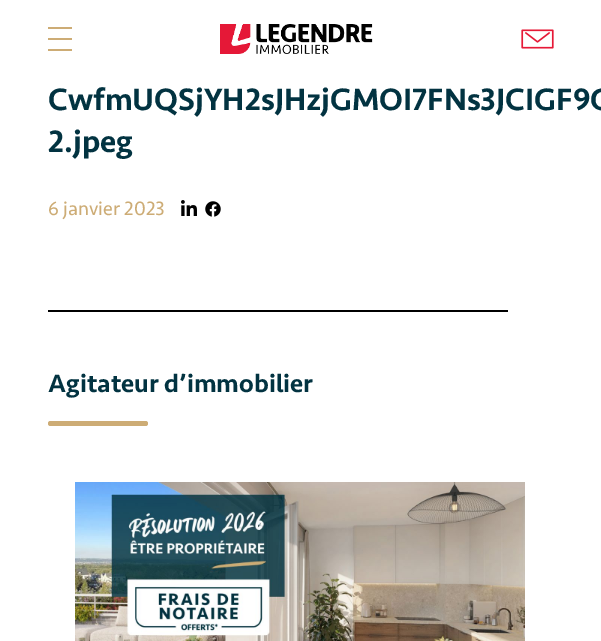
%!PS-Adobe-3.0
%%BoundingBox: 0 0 601 641
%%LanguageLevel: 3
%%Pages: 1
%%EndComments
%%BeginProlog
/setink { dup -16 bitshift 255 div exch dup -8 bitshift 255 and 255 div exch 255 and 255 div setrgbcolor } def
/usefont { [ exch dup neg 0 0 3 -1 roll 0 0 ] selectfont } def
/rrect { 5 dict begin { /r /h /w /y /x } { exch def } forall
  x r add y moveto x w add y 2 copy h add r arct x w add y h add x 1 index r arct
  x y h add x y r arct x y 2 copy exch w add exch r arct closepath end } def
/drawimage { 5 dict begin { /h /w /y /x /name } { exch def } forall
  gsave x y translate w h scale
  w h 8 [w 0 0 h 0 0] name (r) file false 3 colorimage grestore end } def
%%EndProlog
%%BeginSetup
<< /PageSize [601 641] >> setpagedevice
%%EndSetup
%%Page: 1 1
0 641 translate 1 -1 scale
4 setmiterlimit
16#FFFFFF setink
0 0 601 641 rectfill
[
    [48 27 24 2 16#CDAC75]
    [48 38 24 2 16#CDAC75]
    [48 49 24 2 16#CDAC75]
] { aload pop setink rectfill } forall
(img1.raw) 220 24 153 30 drawimage
(img2.raw) 521 29 33 20 drawimage
/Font-SemiBold 32 usefont
16#023341 setink
48 110 moveto (CwfmUQSjYH2sJHzjGMOI7FNs3JCIGF9G) show
48 152 moveto (2.jpeg) show
/Font-Regular 20 usefont
16#CDAC75 setink
48 215 moveto (6 janvier 2023) show
(img3.raw) 181 200 16 16 drawimage
(img4.raw) 205 201 16 16 drawimage
16#000000 setink
48 310 460 2 rectfill
/Font-SemiBold 26 usefont
16#023341 setink
48 392 moveto (Agitateur d’immobilier) show
16#CDAC75 setink
48 421 100 5 2.5 rrect fill
(img5.raw) 75 482 450 159 drawimage
showpage
%%EOF
